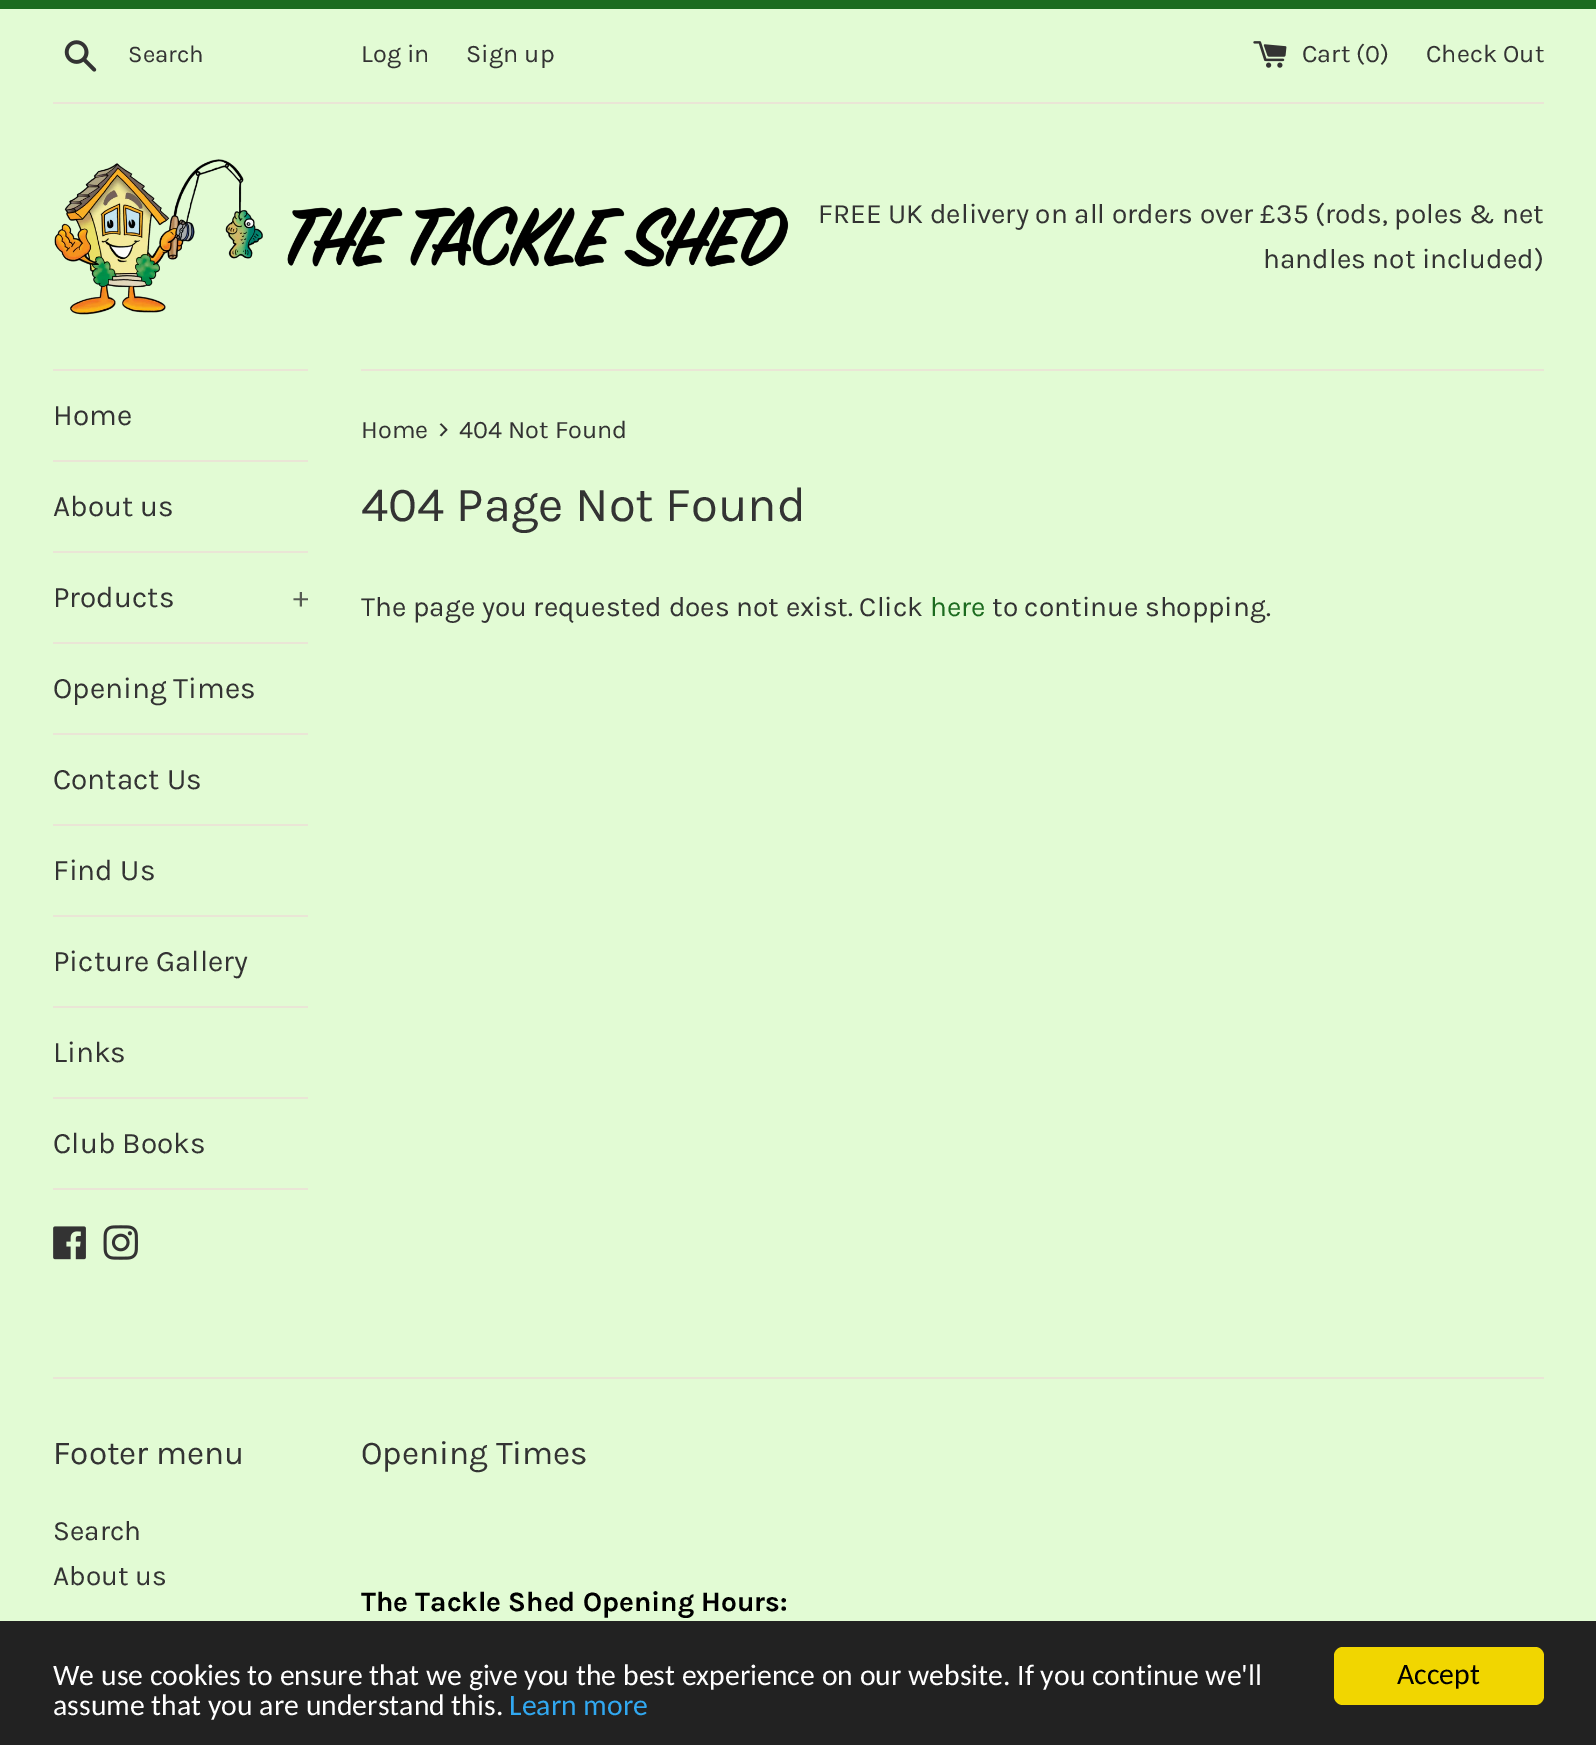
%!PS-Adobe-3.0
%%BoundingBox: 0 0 1596 1745
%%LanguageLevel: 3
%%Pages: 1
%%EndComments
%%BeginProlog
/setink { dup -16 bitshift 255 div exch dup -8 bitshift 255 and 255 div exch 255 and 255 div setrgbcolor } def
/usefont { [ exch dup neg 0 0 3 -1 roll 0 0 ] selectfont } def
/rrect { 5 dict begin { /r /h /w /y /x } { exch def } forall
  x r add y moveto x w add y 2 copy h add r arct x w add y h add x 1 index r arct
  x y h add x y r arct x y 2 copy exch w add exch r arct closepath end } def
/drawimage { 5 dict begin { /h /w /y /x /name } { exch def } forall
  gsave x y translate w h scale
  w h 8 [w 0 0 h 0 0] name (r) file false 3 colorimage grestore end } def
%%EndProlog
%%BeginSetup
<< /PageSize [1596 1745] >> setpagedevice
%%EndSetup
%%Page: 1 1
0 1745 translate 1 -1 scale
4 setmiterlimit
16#E2FBD4 setink
0 0 1596 1745 rectfill
16#1C6B1F setink
0 0 1596 9 rectfill
(img1.raw) 64 40 33 32 drawimage
/Karla-Regular 24 usefont
16#333333 setink
128 62 moveto (Search) show
/Karla-Regular 25.25 usefont
361 62 moveto (Log in) show
466 62 moveto (Sign up) show
(img2.raw) 1253 41 34 27 drawimage
1302 62 moveto (Cart \(0\)) show
1426 62 moveto (Check Out) show
16#EAE5D6 setink
53 102 1491 2 rectfill
(img3.raw) 54 159 735 156 drawimage
/Karla-Regular 28 usefont
16#333333 setink
818 223 moveto (FREE UK delivery on all orders over £35 \(rods, poles & net) show
1263 268 moveto (handles not included\)) show
16#EAE5D6 setink
53 369 255 2 rectfill
53 460 255 2 rectfill
/Karla-Regular 29.75 usefont
16#333333 setink
53 425 moveto (Home) show
16#EAE5D6 setink
53 551 255 2 rectfill
16#333333 setink
53 516 moveto (About us) show
16#EAE5D6 setink
53 642 255 2 rectfill
16#333333 setink
53 607 moveto (Products) show
16#565B53 setink
293 607 moveto (+) show
16#EAE5D6 setink
53 733 255 2 rectfill
16#333333 setink
53 698 moveto (Opening Times) show
16#EAE5D6 setink
53 824 255 2 rectfill
16#333333 setink
53 789 moveto (Contact Us) show
16#EAE5D6 setink
53 915 255 2 rectfill
16#333333 setink
53 880 moveto (Find Us) show
16#EAE5D6 setink
53 1006 255 2 rectfill
16#333333 setink
53 971 moveto (Picture Gallery) show
16#EAE5D6 setink
53 1097 255 2 rectfill
16#333333 setink
53 1062 moveto (Links) show
16#EAE5D6 setink
53 1188 255 2 rectfill
16#333333 setink
53 1153 moveto (Club Books) show
(img4.raw) 53 1226 33 34 drawimage
(img5.raw) 103 1225 35 35 drawimage
16#EAE5D6 setink
361 369 1183 2 rectfill
/Karla-Regular 25.25 usefont
16#333333 setink
361 438 moveto (Home) show
/Karla-Regular 31 usefont
438 438 moveto (›) show
/Karla-Regular 25.25 usefont
459 438 moveto (404 Not Found) show
/Karla-Regular 49 usefont
361 521 moveto (404 Page Not Found) show
/Karla-Regular 28 usefont
361 616 moveto (The page you requested does not exist. Click) show
16#1C6B1F setink
930 616 moveto (here) show
16#333333 setink
992 616 moveto (to continue shopping.) show
16#EAE5D6 setink
53 1377 1491 2 rectfill
/Karla-Regular 33.25 usefont
16#333333 setink
53 1464 moveto (Footer menu) show
/Karla-Regular 28 usefont
53 1540 moveto (Search) show
53 1585 moveto (About us) show
/Karla-Regular 33.25 usefont
361 1464 moveto (Opening Times) show
/Karla-Bold 28 usefont
16#000000 setink
361 1611 moveto (The Tackle Shed Opening Hours:) show
16#222222 setink
0 1621 1596 124 rectfill
/Carlito-Regular 29.75 usefont
16#FFFFFF setink
53 1685 moveto (We use cookies to ensure that we give you the best experience on our website. If you continue we'll) show
53 1715 moveto (assume that you are understand this.) show
16#31A8F0 setink
509 1715 moveto (Learn more) show
16#F1D600 setink
1334 1647 210 58 9 rrect fill
16#000000 setink
1397 1684 moveto (Accept) show
showpage
%%EOF
